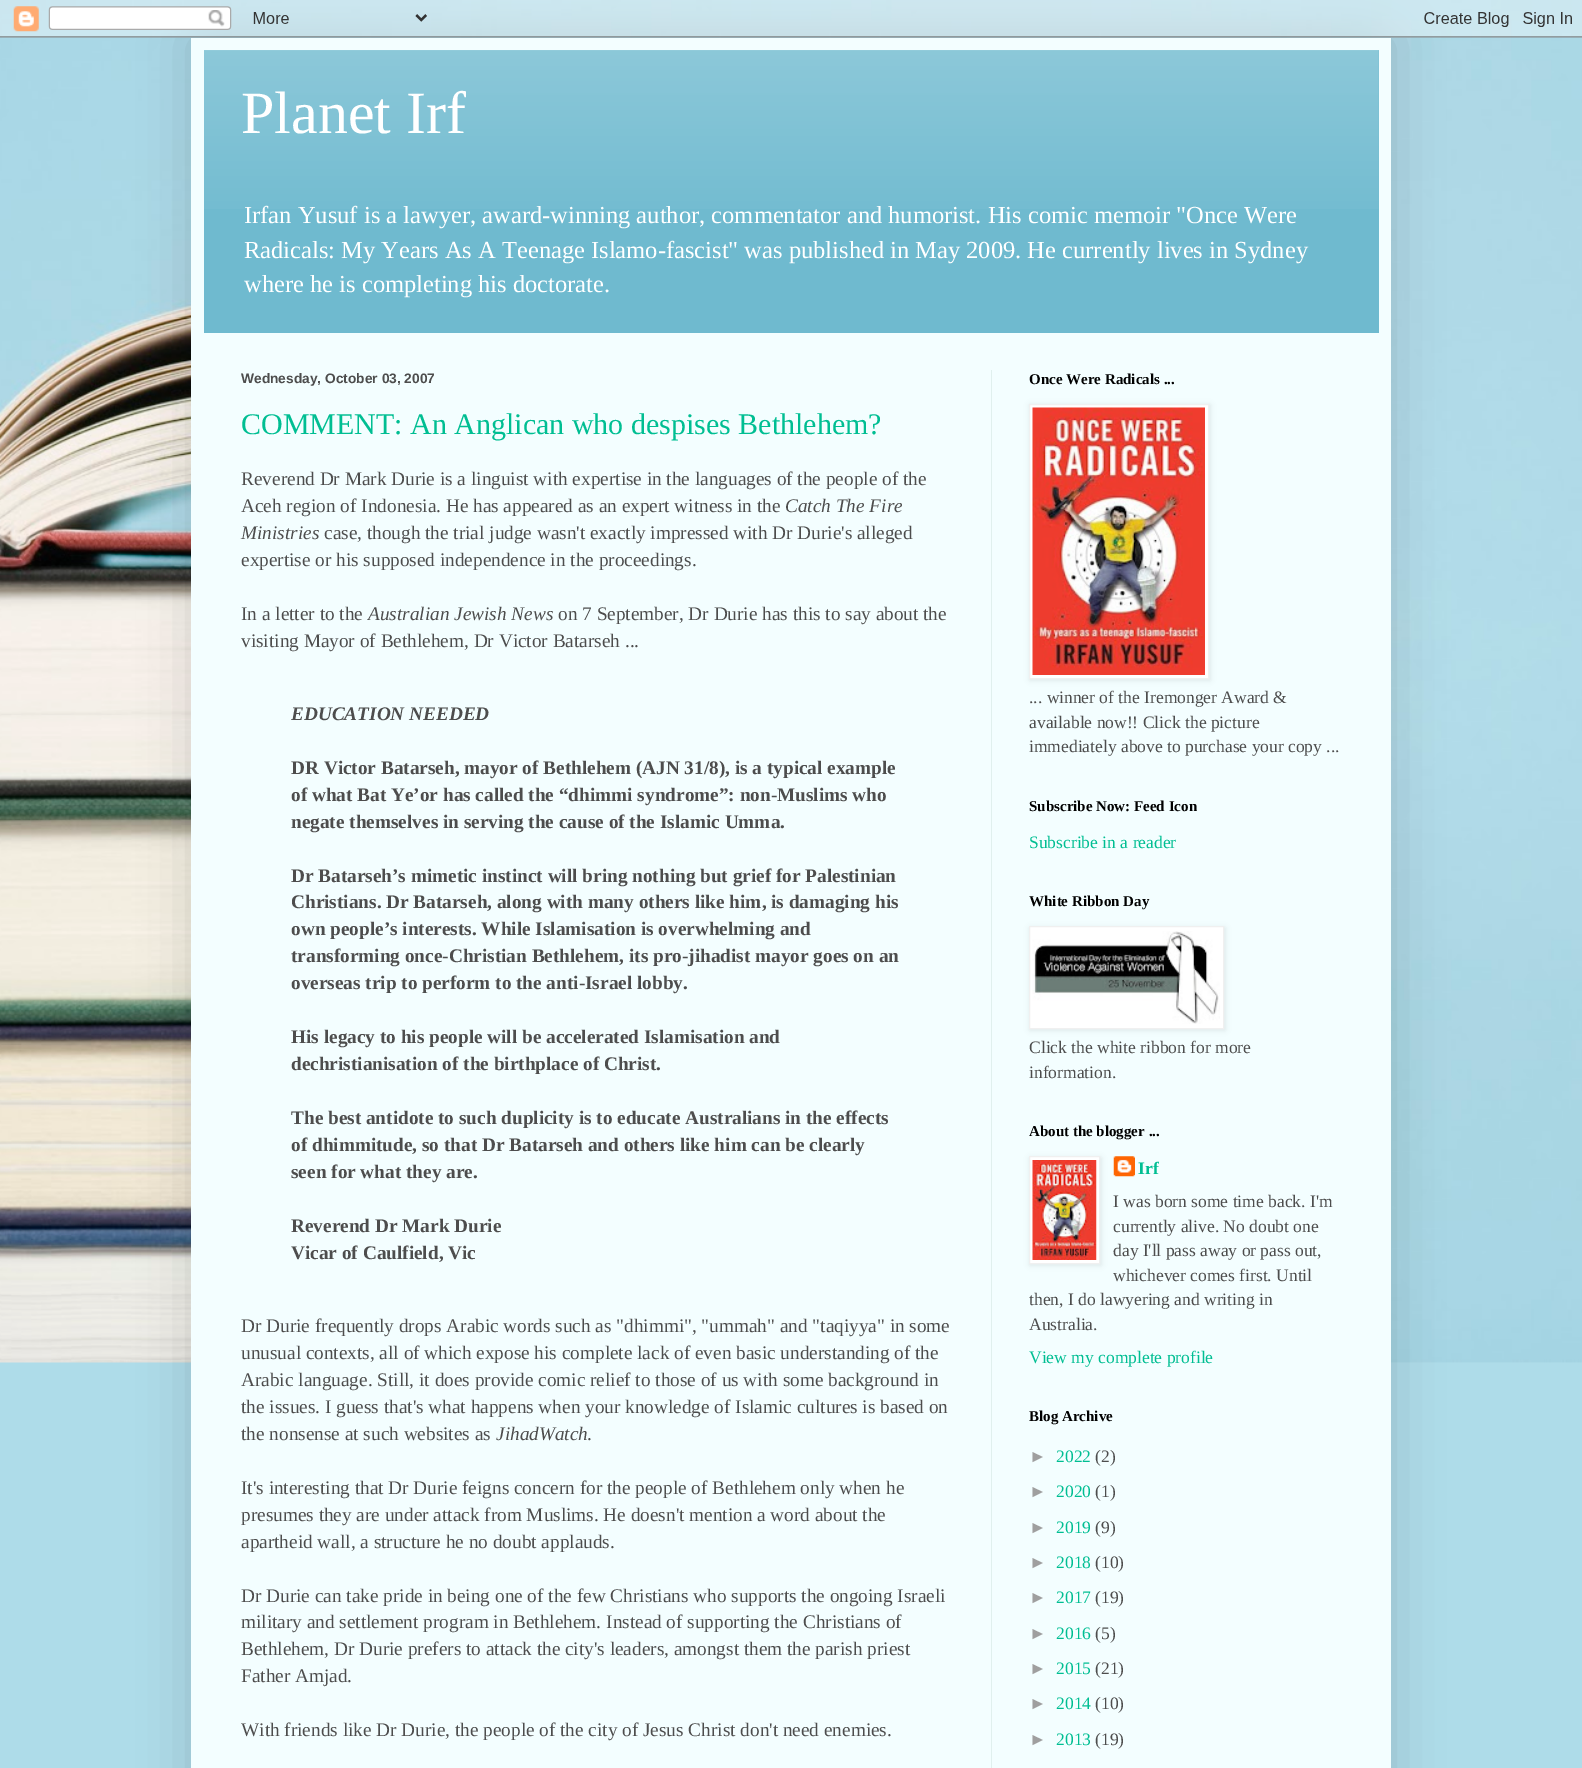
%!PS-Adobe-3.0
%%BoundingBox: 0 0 1582 1768
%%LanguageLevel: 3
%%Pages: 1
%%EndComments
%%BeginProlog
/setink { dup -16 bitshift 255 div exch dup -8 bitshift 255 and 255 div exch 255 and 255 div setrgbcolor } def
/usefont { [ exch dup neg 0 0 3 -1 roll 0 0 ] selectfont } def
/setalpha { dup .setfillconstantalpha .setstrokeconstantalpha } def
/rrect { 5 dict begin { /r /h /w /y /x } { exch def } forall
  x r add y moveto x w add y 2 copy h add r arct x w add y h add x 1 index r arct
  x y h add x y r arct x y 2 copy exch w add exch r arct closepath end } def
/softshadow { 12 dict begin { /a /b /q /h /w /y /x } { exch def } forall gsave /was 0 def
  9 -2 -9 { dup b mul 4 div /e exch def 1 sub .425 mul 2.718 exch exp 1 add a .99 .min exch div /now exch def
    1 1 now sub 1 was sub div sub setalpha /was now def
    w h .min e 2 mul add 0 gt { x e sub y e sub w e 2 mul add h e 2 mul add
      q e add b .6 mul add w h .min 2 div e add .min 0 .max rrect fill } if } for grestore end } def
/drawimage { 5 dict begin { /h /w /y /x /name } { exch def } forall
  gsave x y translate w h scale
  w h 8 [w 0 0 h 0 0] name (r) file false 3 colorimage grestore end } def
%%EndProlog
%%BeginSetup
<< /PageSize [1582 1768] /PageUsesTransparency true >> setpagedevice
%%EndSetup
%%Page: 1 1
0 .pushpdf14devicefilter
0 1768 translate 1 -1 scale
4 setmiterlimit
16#AEDCE9 setink
0 0 1582 1768 rectfill
(img1.raw) 0 0 1582 1363 drawimage
16#000000 setink
191 38 1200 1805 0 25 0.15 softshadow
(img2.raw) 0 0 1582 38 drawimage
16#F3FEFF setink
191 38 1200 1730 rectfill
16#6FBACF setink
204 50 1175 283 rectfill
(img3.raw) 204 50 1175 159 drawimage
/LiberationSerif-Regular 60 usefont
16#FFFFFF setink
241 133 moveto (Planet Irf) show
/LiberationSerif-Regular 24.5 usefont
[
    [(Irfan Yusuf is a lawyer, award-winning author, commentator and humorist. His comic memoir "Once Were) 244 223]
    [(Radicals: My Years As A Teenage Islamo-fascist" was published in May 2009. He currently lives in Sydney) 244 258]
    [(where he is completing his doctorate.) 244 292]
] { aload pop moveto show } forall
16#E0F0EE setink
991 370 1 1398 rectfill
/LiberationSans-Bold 13.75 usefont
16#4D4D4D setink
241 383 moveto (Wednesday, October 03, 2007) show
/LiberationSerif-Regular 30 usefont
16#00BE92 setink
241 434 moveto (COMMENT: An Anglican who despises Bethlehem?) show
/LiberationSerif-Regular 19.25 usefont
16#4D4D4D setink
241 485 moveto (Reverend Dr Mark Durie is a linguist with expertise in the languages of the people of the) show
241 512 moveto (Aceh region of Indonesia. He has appeared as an expert witness in the) show
/LiberationSerif-Italic 19.25 usefont
785 512 moveto (Catch The Fire) show
241 539 moveto (Ministries) show
/LiberationSerif-Regular 19.25 usefont
[
    [(case, though the trial judge wasn't exactly impressed with Dr Durie's alleged) 324 539]
    [(expertise or his supposed independence in the proceedings.) 241 566]
    [(In a letter to the) 241 620]
] { aload pop moveto show } forall
/LiberationSerif-Italic 19.25 usefont
368 620 moveto (Australian Jewish News) show
/LiberationSerif-Regular 19.25 usefont
558 620 moveto (on 7 September, Dr Durie has this to say about the) show
241 647 moveto (visiting Mayor of Bethlehem, Dr Victor Batarseh ...) show
/LiberationSerif-BoldItalic 19.25 usefont
291 720 moveto (EDUCATION NEEDED) show
/LiberationSerif-Bold 19.25 usefont
[
    [(DR Victor Batarseh, mayor of Bethlehem \(AJN 31/8\), is a typical example) 291 774]
    [(of what Bat Ye’or has called the “dhimmi syndrome”: non-Muslims who) 291 801]
    [(negate themselves in serving the cause of the Islamic Umma.) 291 828]
    [(Dr Batarseh’s mimetic instinct will bring nothing but grief for Palestinian) 291 882]
    [(Christians. Dr Batarseh, along with many others like him, is damaging his) 291 908]
    [(own people’s interests. While Islamisation is overwhelming and) 291 935]
    [(transforming once-Christian Bethlehem, its pro-jihadist mayor goes on an) 291 962]
    [(overseas trip to perform to the anti-Israel lobby.) 291 989]
    [(His legacy to his people will be accelerated Islamisation and) 291 1043]
    [(dechristianisation of the birthplace of Christ.) 291 1070]
    [(The best antidote to such duplicity is to educate Australians in the effects) 291 1124]
    [(of dhimmitude, so that Dr Batarseh and others like him can be clearly) 291 1151]
    [(seen for what they are.) 291 1178]
    [(Reverend Dr Mark Durie) 291 1232]
    [(Vicar of Caulfield, Vic) 291 1259]
] { aload pop moveto show } forall
/LiberationSerif-Regular 19.25 usefont
[
    [(Dr Durie frequently drops Arabic words such as "dhimmi", "ummah" and "taqiyya" in some) 241 1332]
    [(unusual contexts, all of which expose his complete lack of even basic understanding of the) 241 1359]
    [(Arabic language. Still, it does provide comic relief to those of us with some background in) 241 1386]
    [(the issues. I guess that's what happens when your knowledge of Islamic cultures is based on) 241 1413]
    [(the nonsense at such websites as) 241 1440]
] { aload pop moveto show } forall
/LiberationSerif-Italic 19.25 usefont
496 1440 moveto (JihadWatch) show
/LiberationSerif-Regular 19.25 usefont
[
    [(.) 587 1440]
    [(It's interesting that Dr Durie feigns concern for the people of Bethlehem only when he) 241 1494]
    [(presumes they are under attack from Muslims. He doesn't mention a word about the) 241 1521]
    [(apartheid wall, a structure he no doubt applauds.) 241 1548]
    [(Dr Durie can take pride in being one of the few Christians who supports the ongoing Israeli) 241 1602]
    [(military and settlement program in Bethlehem. Instead of supporting the Christians of) 241 1628]
    [(Bethlehem, Dr Durie prefers to attack the city's leaders, amongst them the parish priest) 241 1655]
    [(Father Amjad.) 241 1682]
    [(With friends like Dr Durie, the people of the city of Jesus Christ don't need enemies.) 241 1736]
] { aload pop moveto show } forall
/LiberationSerif-Bold 15 usefont
16#000000 setink
1029 384 moveto (Once Were Radicals ...) show
1030 405 180 275 0 3 0.1 softshadow
16#FFFFFF setink
1029.5 404.5 moveto 1208.5 404.5 lineto 1208.5 678.5 lineto 1029.5 678.5 lineto closepath gsave fill grestore
16#F0F0F0 setink
stroke
(img4.raw) 1032 407 173 268 drawimage
/LiberationSerif-Regular 17.5 usefont
16#4D4D4D setink
[
    [(... winner of the Iremonger Award &) 1029 703]
    [(available now!! Click the picture) 1029 728]
    [(immediately above to purchase your copy ...) 1029 752]
] { aload pop moveto show } forall
/LiberationSerif-Bold 15 usefont
16#000000 setink
1029 811 moveto (Subscribe Now: Feed Icon) show
/LiberationSerif-Regular 17.5 usefont
16#00BE92 setink
1029 848 moveto (Subscribe in a reader) show
/LiberationSerif-Bold 15 usefont
16#000000 setink
1029 906 moveto (White Ribbon Day) show
1030 928 195 102 0 3 0.1 softshadow
16#FFFFFF setink
1029.5 926.5 moveto 1223.5 926.5 lineto 1223.5 1028.5 lineto 1029.5 1028.5 lineto closepath gsave fill grestore
16#F0F0F0 setink
stroke
(img5.raw) 1032 931 188 93 drawimage
/LiberationSerif-Regular 17.5 usefont
16#4D4D4D setink
1029 1053 moveto (Click the white ribbon for more) show
1029 1078 moveto (information.) show
/LiberationSerif-Bold 15 usefont
16#000000 setink
1029 1136 moveto (About the blogger ...) show
1030 1158 71 107 0 3 0.1 softshadow
16#FFFFFF setink
1029.5 1156.5 moveto 1099.5 1156.5 lineto 1099.5 1263.5 lineto 1029.5 1263.5 lineto closepath gsave fill grestore
16#F0F0F0 setink
stroke
(img6.raw) 1032 1160 65 100 drawimage
(img7.raw) 1113 1156 22 21 drawimage
/LiberationSerif-Bold 17.5 usefont
16#00BE92 setink
1138 1174 moveto (Irf) show
/LiberationSerif-Regular 17.5 usefont
16#4D4D4D setink
[
    [(I was born some time back. I'm) 1113 1207]
    [(currently alive. No doubt one) 1113 1232]
    [(day I'll pass away or pass out,) 1113 1256]
    [(whichever comes first. Until) 1113 1281]
    [(then, I do lawyering and writing in) 1029 1305]
    [(Australia.) 1029 1330]
] { aload pop moveto show } forall
16#00BE92 setink
1029 1363 moveto (View my complete profile) show
/LiberationSerif-Bold 15 usefont
16#000000 setink
1029 1421 moveto (Blog Archive) show
/LiberationSans-Regular 17.5 usefont
16#9F9F9F setink
1029 1462 moveto (►) show
/LiberationSerif-Regular 17.5 usefont
16#00BE92 setink
1056 1462 moveto (2022) show
16#4D4D4D setink
1095 1462 moveto (\(2\)) show
/LiberationSans-Regular 17.5 usefont
16#9F9F9F setink
1029 1497 moveto (►) show
/LiberationSerif-Regular 17.5 usefont
16#00BE92 setink
1056 1497 moveto (2020) show
16#4D4D4D setink
1095 1497 moveto (\(1\)) show
/LiberationSans-Regular 17.5 usefont
16#9F9F9F setink
1029 1533 moveto (►) show
/LiberationSerif-Regular 17.5 usefont
16#00BE92 setink
1056 1533 moveto (2019) show
16#4D4D4D setink
1095 1533 moveto (\(9\)) show
/LiberationSans-Regular 17.5 usefont
16#9F9F9F setink
1029 1568 moveto (►) show
/LiberationSerif-Regular 17.5 usefont
16#00BE92 setink
1056 1568 moveto (2018) show
16#4D4D4D setink
1095 1568 moveto (\(10\)) show
/LiberationSans-Regular 17.5 usefont
16#9F9F9F setink
1029 1603 moveto (►) show
/LiberationSerif-Regular 17.5 usefont
16#00BE92 setink
1056 1603 moveto (2017) show
16#4D4D4D setink
1095 1603 moveto (\(19\)) show
/LiberationSans-Regular 17.5 usefont
16#9F9F9F setink
1029 1639 moveto (►) show
/LiberationSerif-Regular 17.5 usefont
16#00BE92 setink
1056 1639 moveto (2016) show
16#4D4D4D setink
1095 1639 moveto (\(5\)) show
/LiberationSans-Regular 17.5 usefont
16#9F9F9F setink
1029 1674 moveto (►) show
/LiberationSerif-Regular 17.5 usefont
16#00BE92 setink
1056 1674 moveto (2015) show
16#4D4D4D setink
1095 1674 moveto (\(21\)) show
/LiberationSans-Regular 17.5 usefont
16#9F9F9F setink
1029 1709 moveto (►) show
/LiberationSerif-Regular 17.5 usefont
16#00BE92 setink
1056 1709 moveto (2014) show
16#4D4D4D setink
1095 1709 moveto (\(10\)) show
/LiberationSans-Regular 17.5 usefont
16#9F9F9F setink
1029 1745 moveto (►) show
/LiberationSerif-Regular 17.5 usefont
16#00BE92 setink
1056 1745 moveto (2013) show
16#4D4D4D setink
1095 1745 moveto (\(19\)) show
.poppdf14devicefilter showpage
%%EOF
